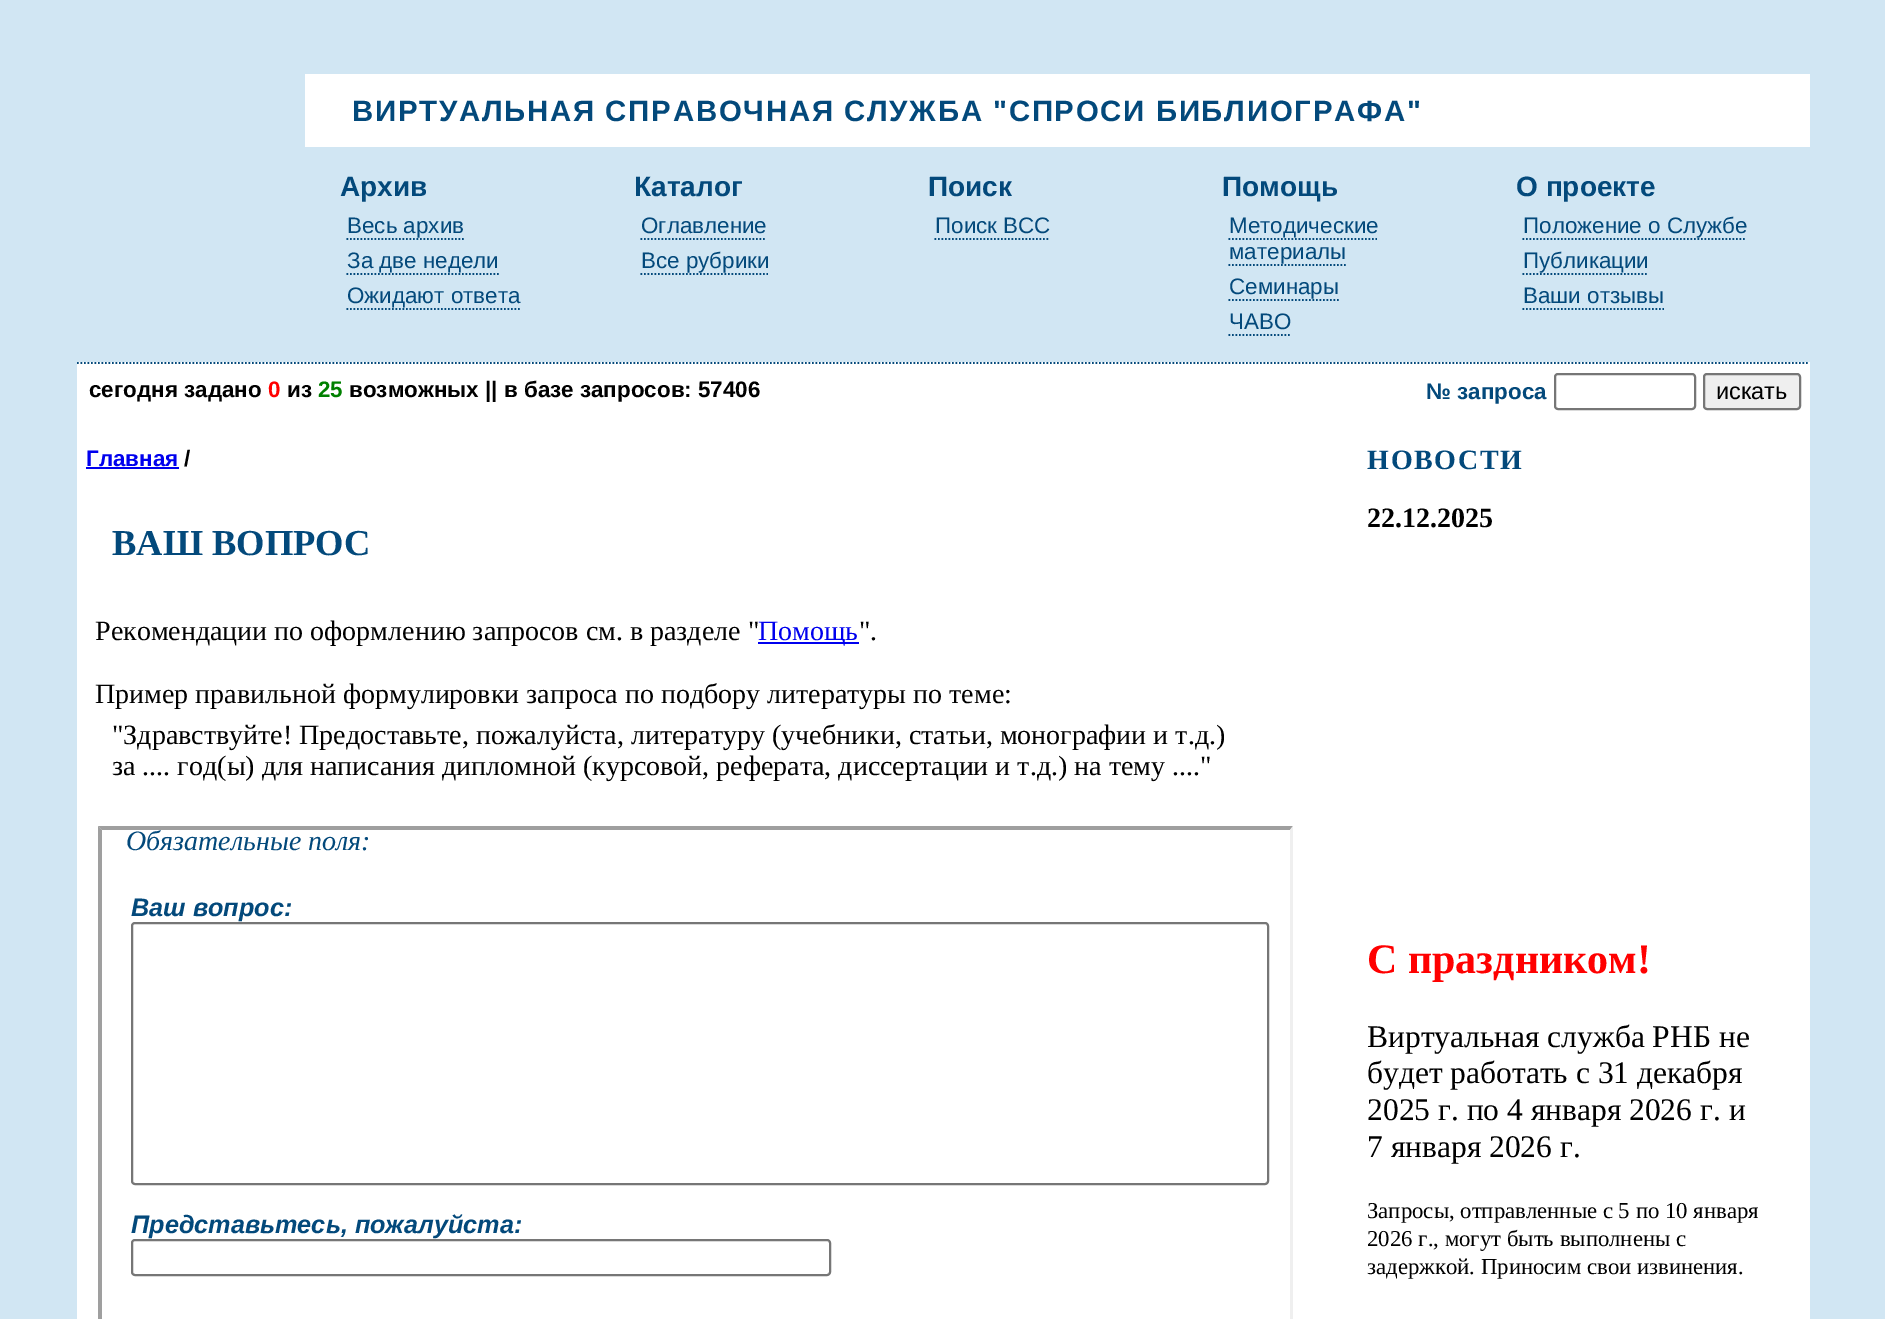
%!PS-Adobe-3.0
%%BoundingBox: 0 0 1885 1319
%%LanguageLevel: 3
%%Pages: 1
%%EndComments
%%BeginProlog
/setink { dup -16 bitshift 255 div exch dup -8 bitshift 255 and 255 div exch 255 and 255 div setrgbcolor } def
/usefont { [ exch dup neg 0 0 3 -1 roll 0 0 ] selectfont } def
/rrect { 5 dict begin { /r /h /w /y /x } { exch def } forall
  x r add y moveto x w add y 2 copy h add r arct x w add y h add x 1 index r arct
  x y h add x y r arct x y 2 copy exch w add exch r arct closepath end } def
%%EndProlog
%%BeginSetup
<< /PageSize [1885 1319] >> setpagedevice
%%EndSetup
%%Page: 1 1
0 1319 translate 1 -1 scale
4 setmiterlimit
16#D1E6F3 setink
0 0 1885 1319 rectfill
16#FFFFFF setink
305 74 1505 73 rectfill
/LiberationSans-Bold 29.4 usefont
16#03497B setink
352 121 moveto -0.5 0 32 1.75 0 (ВИРТУАЛЬНАЯ СПРАВОЧНАЯ СЛУЖБА "СПРОСИ БИБЛИОГРАФА") awidthshow
/LiberationSans-Bold 28 usefont
[
    [(Архив) 340 196]
    [(Каталог) 634 196]
    [(Поиск) 928 196]
    [(Помощь) 1222 196]
    [(О проекте) 1516 196]
] { aload pop moveto show } forall
/LiberationSans-Regular 22.4 usefont
347 233 moveto (Весь архив) show
1.8 setlinewidth
[1.75 1.75] 0 setdash
346.5 239 moveto 464 239 lineto stroke
347 268 moveto (За две недели) show
346.5 274 moveto 499 274 lineto stroke
347 303 moveto (Ожидают ответа) show
346.5 309 moveto 520 309 lineto stroke
641 233 moveto (Оглавление) show
640.5 239 moveto 766.5 239 lineto stroke
641 268 moveto (Все рубрики) show
640.5 274 moveto 768 274 lineto stroke
935 233 moveto (Поиск ВСС) show
934.5 239 moveto 1050 239 lineto stroke
1229 233 moveto (Методические) show
1228.5 239 moveto 1377 239 lineto stroke
1229 259 moveto (материалы) show
1228.5 265 moveto 1346 265 lineto stroke
1229 294 moveto (Cеминары) show
1228.5 300 moveto 1339 300 lineto stroke
1229 329 moveto (ЧАВО) show
1228.5 335 moveto 1291.5 335 lineto stroke
1523 233 moveto (Положение о Службе) show
1522.5 239 moveto 1746.5 239 lineto stroke
1523 268 moveto (Публикации) show
1522.5 274 moveto 1648.5 274 lineto stroke
1523 303 moveto (Ваши отзывы) show
1522.5 309 moveto 1664 309 lineto stroke
16#FFFFFF setink
77 362 1733 957 rectfill
16#03497B setink
77 363 moveto 1809.5 363 lineto stroke
/LiberationSans-Bold 22.4 usefont
16#000000 setink
89 397 moveto (сегодня задано) show
16#FF0000 setink
268 397 moveto (0) show
16#000000 setink
287 397 moveto (из) show
16#008000 setink
318 397 moveto (25) show
16#000000 setink
349 397 moveto (возможных || в базе запросов: 57406) show
16#03497B setink
1426 399 moveto (№ запроса) show
16#767676 setink
2 setlinewidth
[] 0 setdash
1555 374 140 35 3 rrect stroke
16#EFEFEF setink
1704 374 96 35 3 rrect gsave fill grestore
16#767676 setink
stroke
/LiberationSans-Regular 23.5 usefont
16#000000 setink
1716 399 moveto (искать) show
/LiberationSans-Bold 22.4 usefont
16#0000EE setink
86 466 moveto (Главная) show
86 467 93 2 rectfill
16#000000 setink
184 466 moveto (/) show
/LiberationSerif-Bold 28 usefont
16#03497B setink
1367 469 moveto 1.75 0 (НОВОСТИ) ashow
16#000000 setink
1367 527 moveto (22.12.2025) show
/LiberationSerif-Bold 42 usefont
16#FF0000 setink
1367 973 moveto (C праздником!) show
/LiberationSerif-Regular 31.5 usefont
16#000000 setink
[
    [(Виртуальная служба РНБ не) 1367 1047]
    [(будет работать с 31 декабря) 1367 1083]
    [(2025 г. по 4 января 2026 г. и) 1367 1120]
    [(7 января 2026 г.) 1367 1157]
] { aload pop moveto show } forall
/LiberationSerif-Regular 22.75 usefont
[
    [(Запросы, отправленные с 5 по 10 января) 1367 1218]
    [(2026 г., могут быть выполнены с) 1367 1246]
    [(задержкой. Приносим свои извинения.) 1367 1274]
] { aload pop moveto show } forall
/LiberationSerif-Bold 36.5 usefont
16#03497B setink
112 555 moveto (ВАШ ВОПРОС) show
/LiberationSerif-Regular 28 usefont
16#000000 setink
95 640 moveto (Рекомендации по оформлению запросов см. в разделе ") show
16#0000EE setink
758 642 101 2 rectfill
758 640 moveto (Помощь) show
16#000000 setink
[
    [(".) 859 640]
    [(Пример правильной формулировки запроса по подбору литературы по теме:) 95 703]
    [("Здравствуйте! Предоставьте, пожалуйста, литературу \(учебники, статьи, монографии и т.д.\)) 112 744]
    [(за .... год\(ы\) для написания дипломной \(курсовой, реферата, диссертации и т.д.\) на тему ....") 112 775]
] { aload pop moveto show } forall
16#9F9F9F setink
98 826 moveto 1293 826 lineto 1290 830 lineto 102 830 lineto closepath fill
16#EFEFEF setink
1293 826 moveto 1293 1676 lineto 1290 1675 lineto 1290 830 lineto closepath fill
16#9F9F9F setink
98 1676 moveto 98 826 lineto 102 830 lineto 102 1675 lineto closepath fill
/LiberationSerif-Italic 28 usefont
16#03497B setink
126 850 moveto (Обязательные поля:) show
/LiberationSans-BoldItalic 25.25 usefont
131 916 moveto (Ваш вопрос:) show
16#767676 setink
132 923 1136 261 3 rrect stroke
16#03497B setink
131 1233 moveto (Представьтесь, пожалуйста:) show
16#767676 setink
132 1240 698 35 3 rrect stroke
showpage
%%EOF
